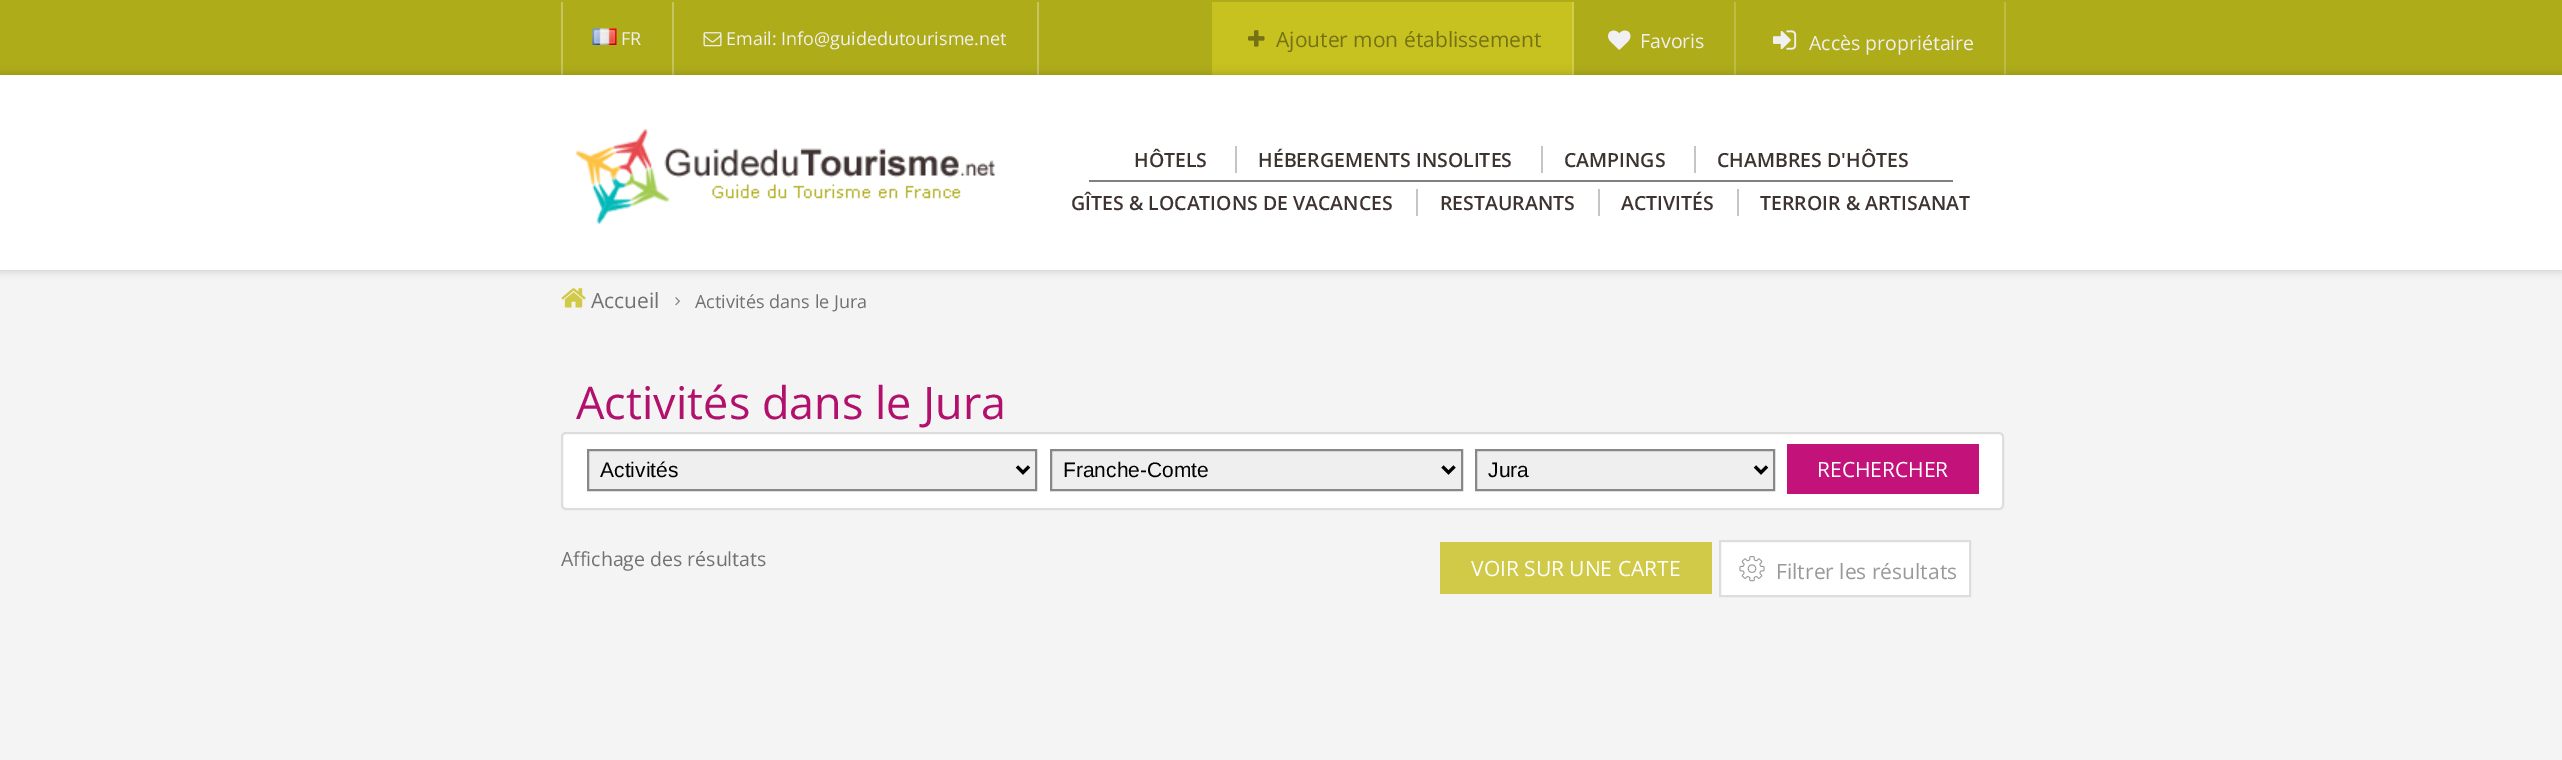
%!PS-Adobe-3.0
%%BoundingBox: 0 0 2562 760
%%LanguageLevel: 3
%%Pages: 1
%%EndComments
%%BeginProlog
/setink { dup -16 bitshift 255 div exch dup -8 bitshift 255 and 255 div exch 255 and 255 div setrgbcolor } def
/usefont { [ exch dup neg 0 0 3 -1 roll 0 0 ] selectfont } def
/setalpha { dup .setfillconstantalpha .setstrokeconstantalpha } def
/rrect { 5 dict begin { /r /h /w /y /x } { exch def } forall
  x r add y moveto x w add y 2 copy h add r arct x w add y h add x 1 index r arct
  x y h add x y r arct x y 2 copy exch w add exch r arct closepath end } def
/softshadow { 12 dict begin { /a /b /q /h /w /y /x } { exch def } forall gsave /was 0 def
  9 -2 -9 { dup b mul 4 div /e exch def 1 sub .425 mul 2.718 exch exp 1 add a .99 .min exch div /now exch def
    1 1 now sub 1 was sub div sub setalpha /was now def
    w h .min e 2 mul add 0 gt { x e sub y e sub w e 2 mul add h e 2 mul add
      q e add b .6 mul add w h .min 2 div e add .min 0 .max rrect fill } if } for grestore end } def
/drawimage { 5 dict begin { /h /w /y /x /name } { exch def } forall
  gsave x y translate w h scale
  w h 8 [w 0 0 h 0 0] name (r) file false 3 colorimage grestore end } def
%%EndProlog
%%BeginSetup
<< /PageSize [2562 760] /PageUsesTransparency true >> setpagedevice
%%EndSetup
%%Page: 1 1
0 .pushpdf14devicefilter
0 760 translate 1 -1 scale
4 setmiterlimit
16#F4F4F4 setink
0 0 2562 760 rectfill
[
    [0 0 2562 75 16#AFAC1A]
    [2004 2 2 73 16#BFBD48]
    [1734 2 2 73 16#BFBD48]
    [1037 2 2 73 16#C7C55F]
    [561 2 2 73 16#C7C55F]
    [672 2 2 73 16#C7C55F]
] { aload pop setink rectfill } forall
(img1.raw) 592 28 25 17 drawimage
/OpenSans-Regular 18 usefont
16#F0EFF2 setink
621 45 moveto (FR) show
(img2.raw) 703 32 19 15 drawimage
726 45 moveto (Email: Info@guidedutourisme.net) show
16#C7C21F setink
1212 2 360 73 rectfill
16#D2CE4C setink
1572 2 2 75 rectfill
(img3.raw) 1248 30 17 17 drawimage
/OpenSans-Regular 21 usefont
16#747214 setink
1276 47 moveto (Ajouter mon établissement) show
(img4.raw) 1608 30 23 20 drawimage
/OpenSans-Regular 19.5 usefont
16#F0EFF2 setink
1640 48 moveto (Favoris) show
(img5.raw) 1773 30 24 20 drawimage
1809 50 moveto (Accès propriétaire) show
16#000000 setink
0 75 2562 195 0 4.5 0.2 softshadow
16#FFFFFF setink
0 75 2562 195 rectfill
(img6.raw) 575 128 420 96 drawimage
/OpenSans-SemiBold 19.5 usefont
16#3D3331 setink
1134 167 moveto (HÔTELS) show
1258 167 moveto (HÉBERGEMENTS INSOLITES) show
16#C5C5C5 setink
1235 146 2 27 rectfill
16#3D3331 setink
1564 167 moveto (CAMPINGS) show
16#C5C5C5 setink
1541 146 2 27 rectfill
16#3D3331 setink
1717 167 moveto (CHAMBRES D'HÔTES) show
16#C5C5C5 setink
1694 146 2 27 rectfill
16#808080 setink
1089 180 864 2 rectfill
16#3D3331 setink
1071 210 moveto (GÎTES & LOCATIONS DE VACANCES) show
1440 210 moveto (RESTAURANTS) show
16#C5C5C5 setink
1416 189 2 27 rectfill
16#3D3331 setink
1621 210 moveto (ACTIVITÉS) show
16#C5C5C5 setink
1598 189 2 27 rectfill
16#3D3331 setink
1760 210 moveto (TERROIR & ARTISANAT) show
16#C5C5C5 setink
1737 189 2 27 rectfill
(img7.raw) 561 288 25 20 drawimage
/OpenSans-Regular 21 usefont
16#717171 setink
591 308 moveto (Accueil) show
(img8.raw) 675 297 5 9 drawimage
/OpenSans-Regular 18 usefont
695 308 moveto (Activités dans le Jura) show
/OpenSans-Regular 45 usefont
16#B1106C setink
576 419 moveto (Activités dans le Jura) show
16#FFFFFF setink
562 433 1441 76 4 rrect gsave fill grestore
16#DDDDDD setink
2 setlinewidth
stroke
16#EFEFEF setink
588 450 moveto 1036 450 lineto 1036 490 lineto 588 490 lineto closepath gsave fill grestore
16#888888 setink
stroke
16#000000 setink
3 setlinewidth
1017 466.5 moveto 1023 472.5 lineto 1029 466.5 lineto stroke
/LiberationSans-Regular 21 usefont
600 477 moveto (Activités) show
16#EFEFEF setink
1051 450 moveto 1462 450 lineto 1462 490 lineto 1051 490 lineto closepath gsave fill grestore
16#888888 setink
2 setlinewidth
stroke
16#000000 setink
3 setlinewidth
1442.5 466.5 moveto 1448.5 472.5 lineto 1454.5 466.5 lineto stroke
1063 477 moveto (Franche-Comte) show
16#EFEFEF setink
1476 450 moveto 1774 450 lineto 1774 490 lineto 1476 490 lineto closepath gsave fill grestore
16#888888 setink
2 setlinewidth
stroke
16#000000 setink
3 setlinewidth
1755 466.5 moveto 1761 472.5 lineto 1767 466.5 lineto stroke
1488 477 moveto (Jura) show
16#C3137B setink
1787 444 192 50 rectfill
/OpenSans-Regular 21 usefont
16#FFFFFF setink
1817 477 moveto (RECHERCHER) show
/OpenSans-Regular 19.5 usefont
16#717171 setink
561 566 moveto (Affichage des résultats) show
16#D1CA48 setink
1440 542 272 52 rectfill
/OpenSans-Regular 21 usefont
16#FFFFFF setink
1471 576 moveto (VOIR SUR UNE CARTE) show
1720 541 moveto 1970 541 lineto 1970 596 lineto 1720 596 lineto closepath gsave fill grestore
16#DDDDDD setink
2 setlinewidth
stroke
(img9.raw) 1739 556 26 26 drawimage
16#999999 setink
1776 579 moveto (Filtrer les résultats) show
.poppdf14devicefilter showpage
%%EOF
